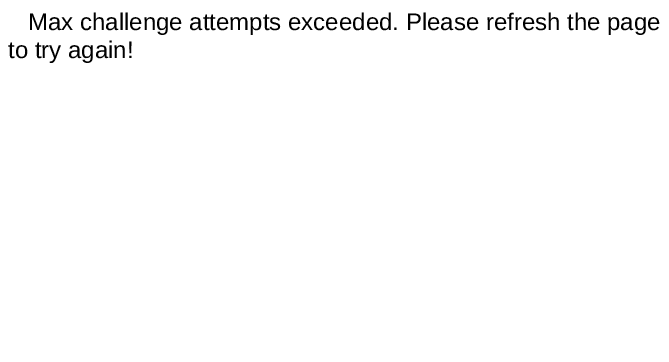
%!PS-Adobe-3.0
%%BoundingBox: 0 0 669 362
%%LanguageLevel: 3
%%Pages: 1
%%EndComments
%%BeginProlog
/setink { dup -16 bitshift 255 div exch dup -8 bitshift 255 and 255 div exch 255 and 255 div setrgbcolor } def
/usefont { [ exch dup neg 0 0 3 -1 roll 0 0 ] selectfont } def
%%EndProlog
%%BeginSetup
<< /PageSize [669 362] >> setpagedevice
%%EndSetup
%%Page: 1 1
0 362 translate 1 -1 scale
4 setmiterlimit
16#FFFFFF setink
0 0 669 362 rectfill
/LiberationSans-Regular 24 usefont
16#000000 setink
28 30 moveto (Max challenge attempts exceeded. Please refresh the page) show
8 58 moveto (to try again!) show
showpage
%%EOF
